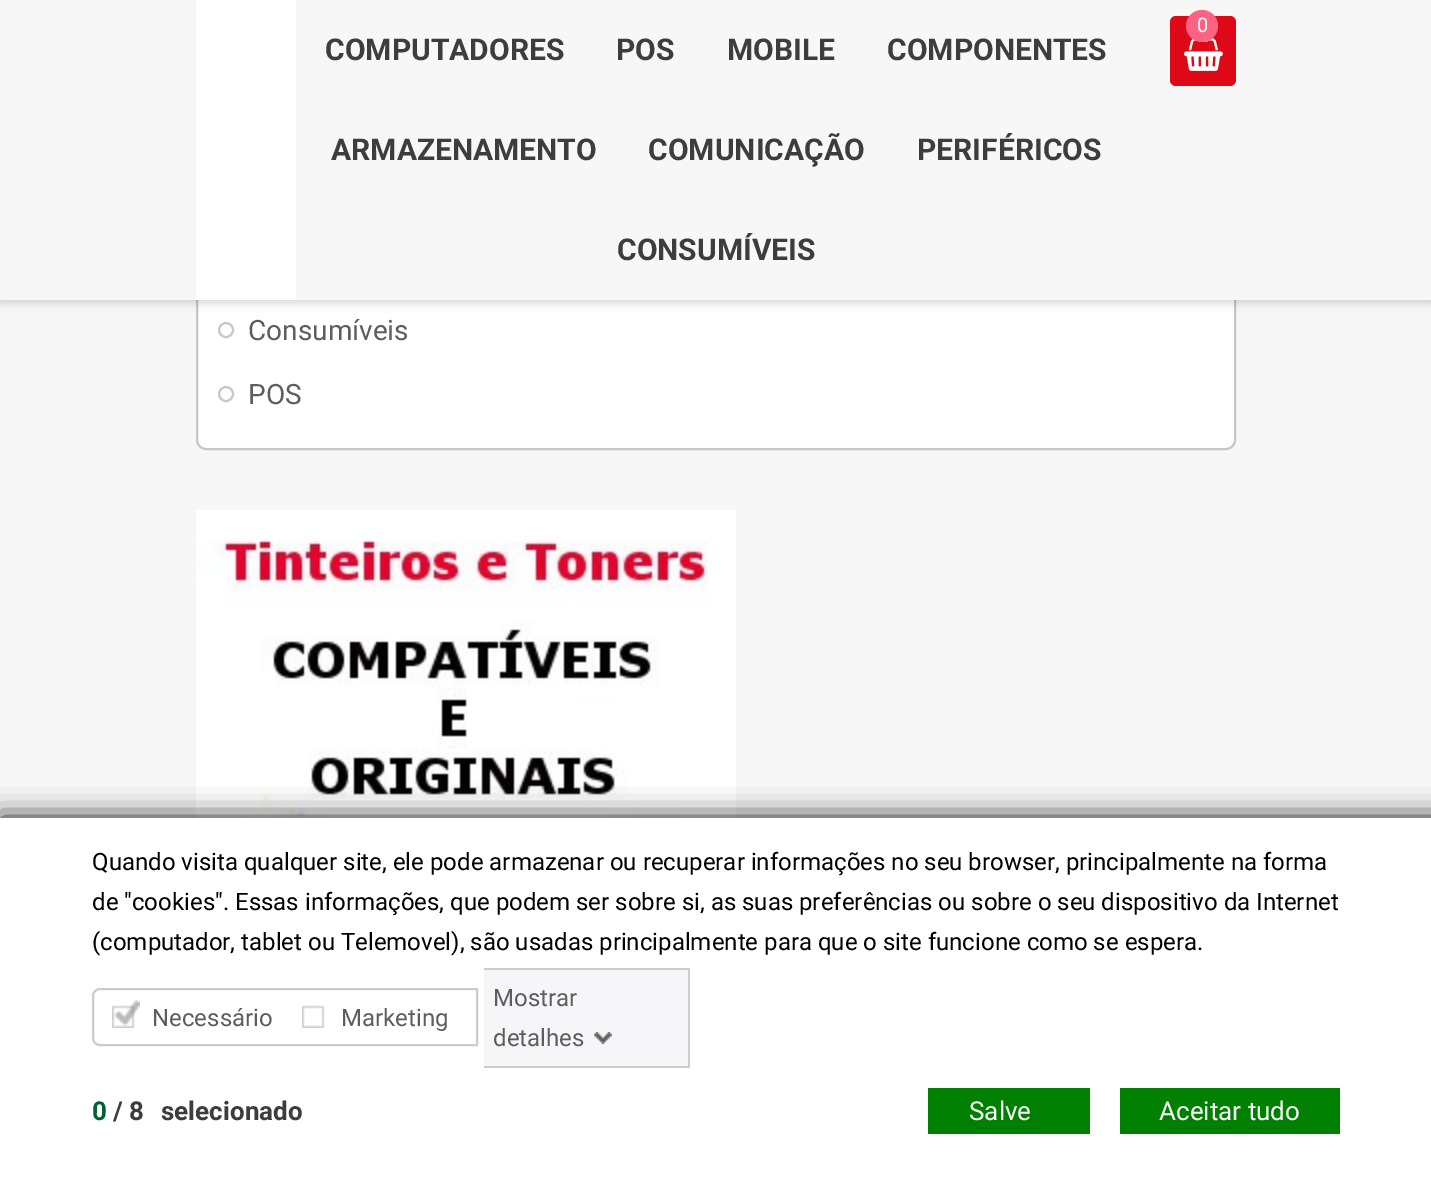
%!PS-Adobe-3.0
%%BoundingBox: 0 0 1431 1177
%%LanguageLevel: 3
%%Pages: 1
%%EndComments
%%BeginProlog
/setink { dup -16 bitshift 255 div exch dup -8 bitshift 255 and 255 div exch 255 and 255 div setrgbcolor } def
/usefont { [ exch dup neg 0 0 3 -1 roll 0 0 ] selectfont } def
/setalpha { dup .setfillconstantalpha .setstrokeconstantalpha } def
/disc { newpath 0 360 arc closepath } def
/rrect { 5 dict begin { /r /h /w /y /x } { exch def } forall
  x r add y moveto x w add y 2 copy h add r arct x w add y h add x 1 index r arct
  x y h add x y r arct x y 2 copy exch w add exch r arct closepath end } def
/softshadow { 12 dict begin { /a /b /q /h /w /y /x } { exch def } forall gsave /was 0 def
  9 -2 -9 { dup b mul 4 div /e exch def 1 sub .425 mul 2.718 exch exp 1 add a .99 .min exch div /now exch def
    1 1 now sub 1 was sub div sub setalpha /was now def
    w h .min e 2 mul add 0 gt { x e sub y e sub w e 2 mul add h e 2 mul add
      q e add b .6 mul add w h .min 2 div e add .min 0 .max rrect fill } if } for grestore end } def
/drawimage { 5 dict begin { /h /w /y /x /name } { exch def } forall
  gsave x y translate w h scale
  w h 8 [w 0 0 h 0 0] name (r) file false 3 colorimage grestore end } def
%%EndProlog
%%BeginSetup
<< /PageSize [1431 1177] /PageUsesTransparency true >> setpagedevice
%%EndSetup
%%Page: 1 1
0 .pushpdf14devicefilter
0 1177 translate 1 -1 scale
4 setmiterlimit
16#F7F7F7 setink
0 0 1431 1177 rectfill
16#FFFFFF setink
197 -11 1038 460 9 rrect gsave fill grestore
16#C7C7C7 setink
2 setlinewidth
stroke
16#000000 setink
0 2 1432 300 0 5 0.2 softshadow
16#F7F7F7 setink
0 0 1431 300 rectfill
16#FFFFFF setink
196 0 100 300 rectfill
16#DE0917 setink
1170 16 66 70 6 rrect fill
(img1.raw) 1184 38 39 33 drawimage
16#FD6282 setink
1202 26 16 disc fill
/Roboto-Regular 20 usefont
16#FFFFFF setink
1197 32 moveto (0) show
/Roboto-Bold 30 usefont
16#3D3D3D setink
[
    [(COMPUTADORES) 325 60]
    [(POS) 616 60]
    [(MOBILE) 727 60]
    [(COMPONENTES) 887 60]
    [(ARMAZENAMENTO) 331 160]
    [(COMUNICAÇÃO) 648 160]
    [(PERIFÉRICOS) 917 160]
    [(CONSUMÍVEIS) 617 260]
] { aload pop moveto show } forall
16#C7C7C7 setink
226 330 7 disc stroke
/Roboto-Regular 28 usefont
16#5D5D5D setink
248 340 moveto (Consumíveis) show
16#C7C7C7 setink
226 394 7 disc stroke
16#5D5D5D setink
248 404 moveto (POS) show
(img2.raw) 196 510 540 308 drawimage
16#121212 setink
0 818 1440 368 0 14 1 softshadow
16#FFFFFF setink
0 818 1431 359 rectfill
/Roboto-Regular 24 usefont
16#000000 setink
[
    [(Quando visita qualquer site, ele pode armazenar ou recuperar informações no seu browser, principalmente na forma) 92 870]
    [(de "cookies". Essas informações, que podem ser sobre si, as suas preferências ou sobre o seu dispositivo da Internet) 92 910]
    [(\(computador, tablet ou Telemovel\), são usadas principalmente para que o site funcione como se espera.) 92 950]
] { aload pop moveto show } forall
16#CCCCCC setink
100 989 moveto 477 989 lineto 477 1045 lineto 100 1045 lineto 96 1045 93 1042 93 1038 curveto 93 996 lineto 93 992 96 989 100 989 curveto closepath stroke
(img3.raw) 112 1000 28 28 drawimage
16#5D5D5D setink
152 1026 moveto (Necessário) show
(img4.raw) 302 1005 23 23 drawimage
341 1026 moveto (Marketing) show
[
    [484 970 204 96 16#F6F6F9]
    [484 968 206 2 16#CCCCCC]
    [688 968 2 100 16#CCCCCC]
    [484 1066 206 2 16#CCCCCC]
] { aload pop setink rectfill } forall
16#5D5D5D setink
493 1006 moveto (Mostrar) show
493 1046 moveto (detalhes) show
(img5.raw) 594 1032 18 12 drawimage
/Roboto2-Bold 26 usefont
16#006131 setink
92 1120 moveto (0) show
16#3D3D3D setink
113 1120 moveto (/ 8) show
161 1120 moveto (selecionado) show
16#008000 setink
928 1088 162 46 rectfill
/Roboto-Regular 26 usefont
16#FFFFFF setink
969 1120 moveto (Salve ) show
16#008000 setink
1120 1088 220 46 rectfill
16#FFFFFF setink
1159 1120 moveto (Aceitar tudo) show
.poppdf14devicefilter showpage
%%EOF
